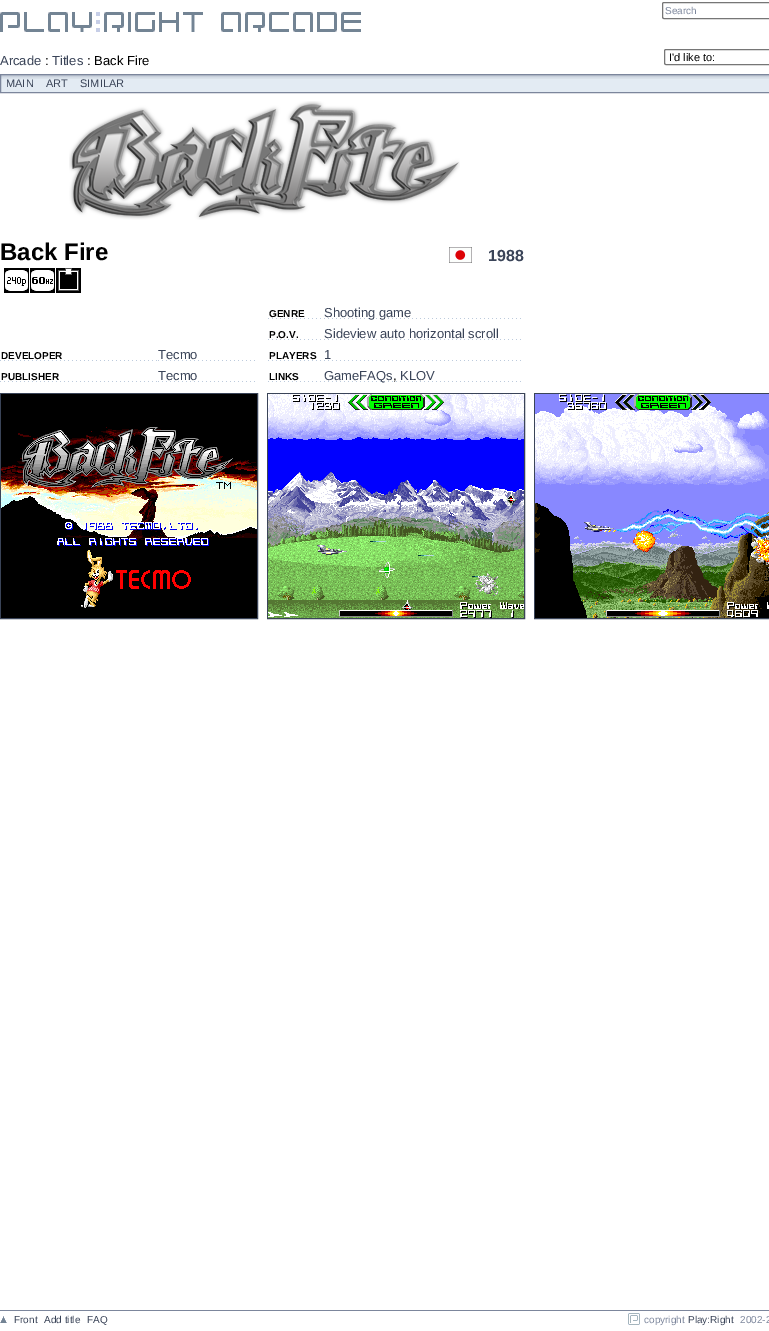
%!PS-Adobe-3.0
%%BoundingBox: 0 0 769 1331
%%LanguageLevel: 3
%%Pages: 1
%%EndComments
%%BeginProlog
/setink { dup -16 bitshift 255 div exch dup -8 bitshift 255 and 255 div exch 255 and 255 div setrgbcolor } def
/usefont { [ exch dup neg 0 0 3 -1 roll 0 0 ] selectfont } def
/rrect { 5 dict begin { /r /h /w /y /x } { exch def } forall
  x r add y moveto x w add y 2 copy h add r arct x w add y h add x 1 index r arct
  x y h add x y r arct x y 2 copy exch w add exch r arct closepath end } def
/drawimage { 5 dict begin { /h /w /y /x /name } { exch def } forall
  gsave x y translate w h scale
  w h 8 [w 0 0 h 0 0] name (r) file false 3 colorimage grestore end } def
%%EndProlog
%%BeginSetup
<< /PageSize [769 1331] >> setpagedevice
%%EndSetup
%%Page: 1 1
0 1331 translate 1 -1 scale
4 setmiterlimit
16#FFFFFF setink
0 0 769 1331 rectfill
16#767676 setink
662.5 2.5 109 16 1.5 rrect stroke
/LiberationSans-Regular 10 usefont
16#7C869C setink
665 14 moveto (Search) show
(img1.raw) 0 12 361 20 drawimage
/LiberationSans-Regular 13 usefont
16#3A4458 setink
0 65 moveto (Arcade) show
16#000000 setink
45 65 moveto (:) show
16#3A4458 setink
52 65 moveto (Titles) show
16#000000 setink
87 65 moveto (: Back Fire) show
16#767676 setink
664.5 49.5 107 15 1.5 rrect stroke
/LiberationSans-Regular 11 usefont
16#000000 setink
669 61 moveto (I'd like to:) show
16#E3EBF3 setink
1 79 768 13 rectfill
(img2.raw) 1 75 768 4 drawimage
16#7C869C setink
0.5 74.5 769 18 rectstroke
16#3A4458 setink
[
    [(MAIN) 6 87]
    [(ART) 46 87]
    [(SIMILAR) 80 87]
] { aload pop moveto show } forall
(img3.raw) 69 101 391 119 drawimage
/LiberationSans-Bold 24 usefont
16#000000 setink
0 260 moveto (Back Fire) show
(img4.raw) 449 247 23 16 drawimage
/LiberationSans-Bold 16 usefont
16#3A4458 setink
488 261 moveto (1988) show
(img5.raw) 4 268 25 25 drawimage
(img6.raw) 30 268 25 25 drawimage
(img7.raw) 56 268 25 25 drawimage
(img8.raw) 0 360 157 1 drawimage
/LiberationSans-Bold 10 usefont
16#000000 setink
1 359 moveto (DEVELOPER) show
(img9.raw) 158 360 97 1 drawimage
/LiberationSans-Regular 13 usefont
16#3A4458 setink
158 359 moveto (Tecmo) show
(img8.raw) 0 381 157 1 drawimage
/LiberationSans-Bold 10 usefont
16#000000 setink
1 380 moveto (PUBLISHER) show
(img9.raw) 158 381 97 1 drawimage
/LiberationSans-Regular 13 usefont
16#3A4458 setink
158 380 moveto (Tecmo) show
(img10.raw) 268 318 53 1 drawimage
/LiberationSans-Bold 10 usefont
16#000000 setink
269 317 moveto (GENRE) show
(img11.raw) 324 318 197 1 drawimage
/LiberationSans-Regular 13 usefont
16#3A4458 setink
324 317 moveto (Shooting game) show
(img10.raw) 268 339 53 1 drawimage
/LiberationSans-Bold 10 usefont
16#000000 setink
269 338 moveto (P.O.V.) show
(img11.raw) 324 339 197 1 drawimage
/LiberationSans-Regular 13 usefont
16#3A4458 setink
324 338 moveto (Sideview auto horizontal scroll) show
(img10.raw) 268 360 53 1 drawimage
/LiberationSans-Bold 10 usefont
16#000000 setink
269 359 moveto (PLAYERS) show
(img11.raw) 324 360 197 1 drawimage
/LiberationSans-Regular 13 usefont
16#3A4458 setink
324 359 moveto (1) show
(img10.raw) 268 381 53 1 drawimage
/LiberationSans-Bold 10 usefont
16#000000 setink
269 380 moveto (LINKS) show
(img11.raw) 324 381 197 1 drawimage
/LiberationSans-Regular 13 usefont
16#3A4458 setink
324 380 moveto (GameFAQs) show
16#000000 setink
393 380 moveto (,) show
16#3A4458 setink
400 380 moveto (KLOV) show
0.5 393.5 257 225 rectstroke
(img12.raw) 1 394 256 224 drawimage
267.5 393.5 257 225 rectstroke
(img13.raw) 268 394 256 224 drawimage
534.5 393.5 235 225 rectstroke
(img14.raw) 535 394 234 224 drawimage
16#7C869C setink
0 1310 769 1 rectfill
(img15.raw) 0 1316 7 7 drawimage
/LiberationSans-Regular 10 usefont
16#3A4458 setink
[
    [(Front) 14 1323]
    [(Add title) 44 1323]
    [(FAQ) 87 1323]
] { aload pop moveto show } forall
(img16.raw) 628 1313 12 12 drawimage
16#7C869C setink
644 1323 moveto (copyright) show
16#3A4458 setink
688 1323 moveto (Play:Right) show
16#7C869C setink
740 1323 moveto (2002-2) show
showpage
%%EOF
